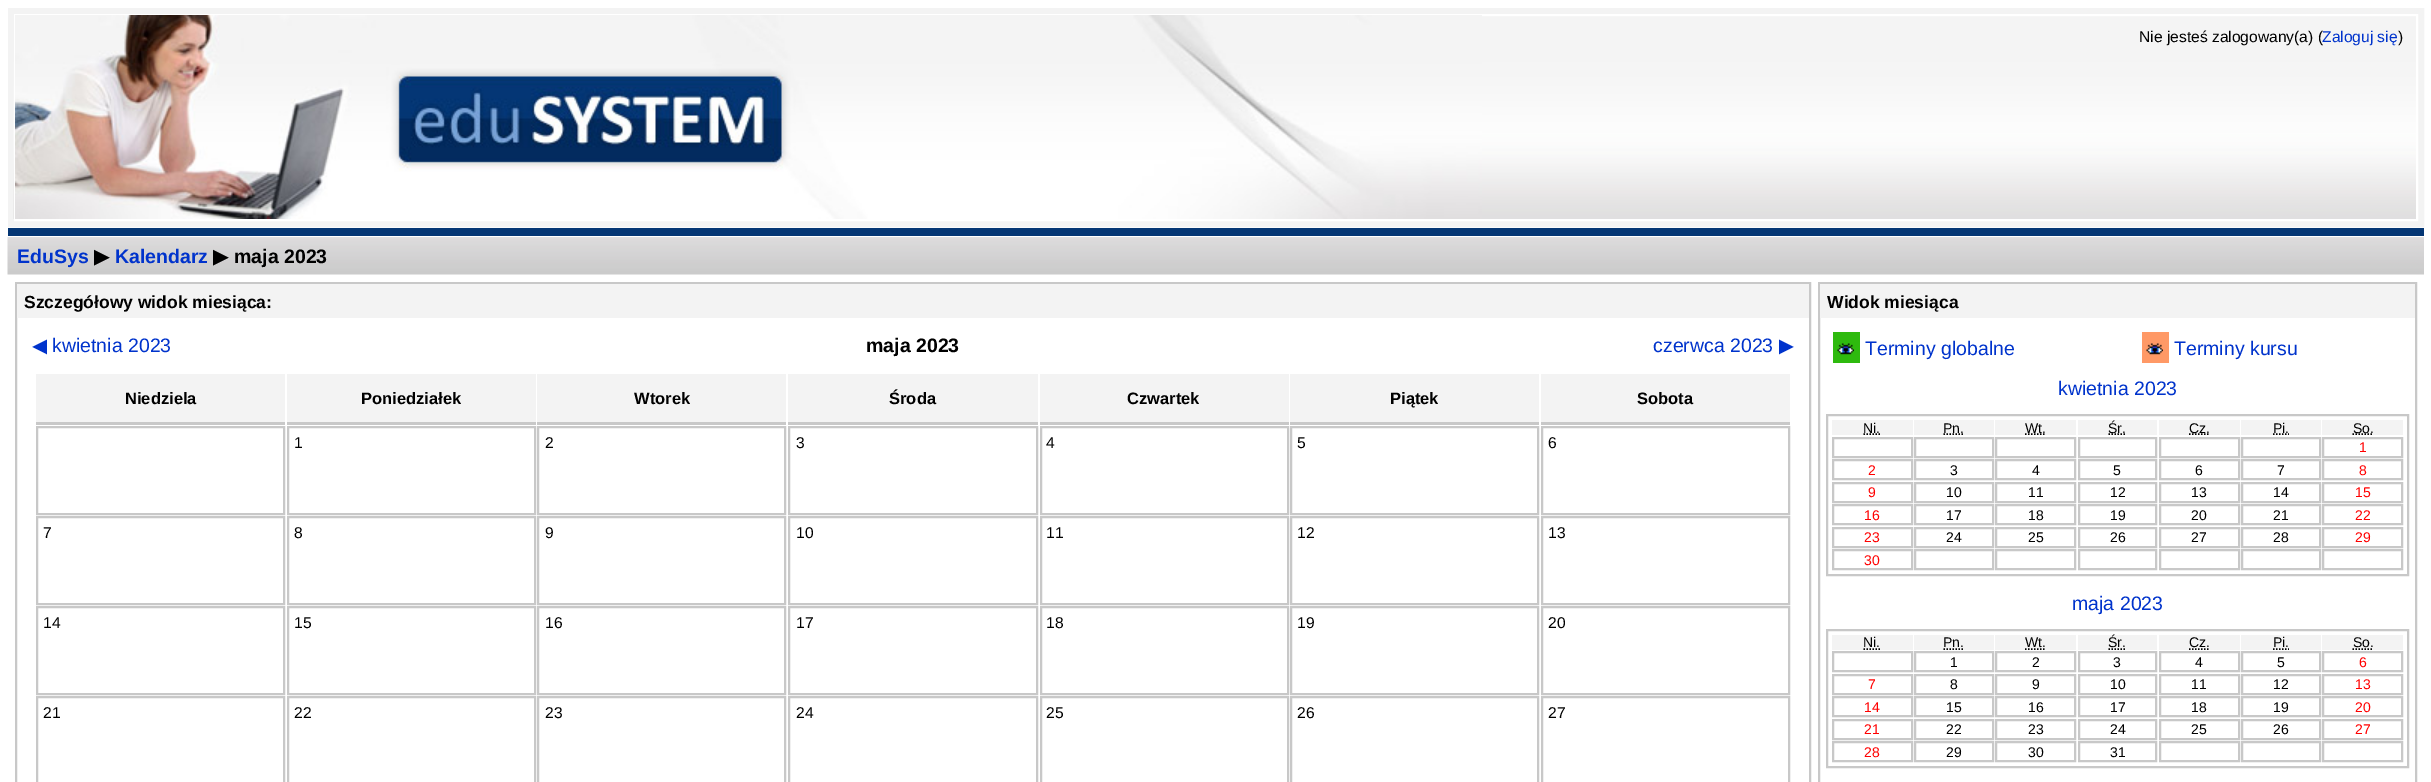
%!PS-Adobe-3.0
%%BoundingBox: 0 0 2431 782
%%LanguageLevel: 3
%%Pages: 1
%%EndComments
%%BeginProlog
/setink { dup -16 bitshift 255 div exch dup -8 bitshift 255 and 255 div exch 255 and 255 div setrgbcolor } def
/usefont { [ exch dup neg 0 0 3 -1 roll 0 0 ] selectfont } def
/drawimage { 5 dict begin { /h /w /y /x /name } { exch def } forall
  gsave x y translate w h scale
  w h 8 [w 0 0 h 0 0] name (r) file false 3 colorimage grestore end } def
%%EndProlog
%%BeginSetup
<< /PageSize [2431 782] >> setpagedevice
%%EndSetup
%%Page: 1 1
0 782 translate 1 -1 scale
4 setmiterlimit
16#FFFFFF setink
0 0 2431 782 rectfill
16#F3F3F3 setink
6 setlinewidth
11 11 2410 213 rectstroke
(img1.raw) 13 15 2403 204 drawimage
16#FFFFFF setink
2 setlinewidth
15 15 2402 205 rectstroke
(img2.raw) 15 15 1467 204 drawimage
/LiberationSans-Regular 15.6 usefont
16#000000 setink
2139 42 moveto (Nie jesteś zalogowany\(a\) \() show
16#0033CC setink
2322 42 moveto (Zaloguj się) show
16#000000 setink
2398 42 moveto (\)) show
16#043674 setink
8 228 2416 8 rectfill
(img3.raw) 7 237 2417 38 drawimage
/LiberationSans-Bold 19.5 usefont
16#0033CC setink
17 263 moveto (EduSys) show
/DejaVuSans-Bold 19.5 usefont
16#000000 setink
94 263 moveto (▶) show
/LiberationSans-Bold 19.5 usefont
16#0033CC setink
115 263 moveto (Kalendarz) show
/DejaVuSans-Bold 19.5 usefont
16#000000 setink
213 263 moveto (▶) show
/LiberationSans-Bold 19.5 usefont
234 263 moveto (maja 2023) show
16#C8C8C8 setink
16 283 1794 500 rectstroke
16#F3F3F3 setink
17 284 1792 34 rectfill
/LiberationSans-Bold 17.5 usefont
16#000000 setink
24 308 moveto (Szczegółowy widok miesiąca:) show
/DejaVuSans-Regular 19.5 usefont
16#0033CC setink
32 352 moveto (◀) show
/LiberationSans-Regular 19.5 usefont
52 352 moveto (kwietnia 2023) show
/LiberationSans-Bold 19.5 usefont
16#000000 setink
866 352 moveto (maja 2023) show
/LiberationSans-Regular 19.5 usefont
16#0033CC setink
1653 352 moveto (czerwca 2023) show
/DejaVuSans-Regular 19.5 usefont
1779 352 moveto (▶) show
16#F3F3F3 setink
36 374 249 48 rectfill
16#C8C8C8 setink
36 422 249 3 rectfill
/LiberationSans-Bold 16.5 usefont
16#000000 setink
125 404 moveto (Niedziela) show
16#F3F3F3 setink
287 374 249 48 rectfill
16#C8C8C8 setink
287 422 249 3 rectfill
16#000000 setink
361 404 moveto (Poniedziałek) show
16#F3F3F3 setink
537 374 249 48 rectfill
16#C8C8C8 setink
537 422 249 3 rectfill
16#000000 setink
634 404 moveto (Wtorek) show
16#F3F3F3 setink
788 374 250 48 rectfill
16#C8C8C8 setink
788 422 250 3 rectfill
16#000000 setink
889 404 moveto (Środa) show
16#F3F3F3 setink
1040 374 249 48 rectfill
16#C8C8C8 setink
1040 422 249 3 rectfill
16#000000 setink
1127 404 moveto (Czwartek) show
16#F3F3F3 setink
1290 374 249 48 rectfill
16#C8C8C8 setink
1290 422 249 3 rectfill
16#000000 setink
1390 404 moveto (Piątek) show
16#F3F3F3 setink
1541 374 249 48 rectfill
16#C8C8C8 setink
1541 422 249 3 rectfill
16#000000 setink
1637 404 moveto (Sobota) show
16#C8C8C8 setink
37 427 247 87 rectstroke
288 427 247 87 rectstroke
/LiberationSans-Regular 15.6 usefont
16#000000 setink
294 448 moveto (1) show
16#C8C8C8 setink
538 427 247 87 rectstroke
16#000000 setink
545 448 moveto (2) show
16#C8C8C8 setink
789 427 248 87 rectstroke
16#000000 setink
796 448 moveto (3) show
16#C8C8C8 setink
1041 427 247 87 rectstroke
16#000000 setink
1046 448 moveto (4) show
16#C8C8C8 setink
1291 427 247 87 rectstroke
16#000000 setink
1297 448 moveto (5) show
16#C8C8C8 setink
1542 427 247 87 rectstroke
16#000000 setink
1548 448 moveto (6) show
16#C8C8C8 setink
37 517 247 87 rectstroke
16#000000 setink
43 538 moveto (7) show
16#C8C8C8 setink
288 517 247 87 rectstroke
16#000000 setink
294 538 moveto (8) show
16#C8C8C8 setink
538 517 247 87 rectstroke
16#000000 setink
545 538 moveto (9) show
16#C8C8C8 setink
789 517 248 87 rectstroke
16#000000 setink
796 538 moveto (10) show
16#C8C8C8 setink
1041 517 247 87 rectstroke
16#000000 setink
1046 538 moveto (11) show
16#C8C8C8 setink
1291 517 247 87 rectstroke
16#000000 setink
1297 538 moveto (12) show
16#C8C8C8 setink
1542 517 247 87 rectstroke
16#000000 setink
1548 538 moveto (13) show
16#C8C8C8 setink
37 607 247 87 rectstroke
16#000000 setink
43 628 moveto (14) show
16#C8C8C8 setink
288 607 247 87 rectstroke
16#000000 setink
294 628 moveto (15) show
16#C8C8C8 setink
538 607 247 87 rectstroke
16#000000 setink
545 628 moveto (16) show
16#C8C8C8 setink
789 607 248 87 rectstroke
16#000000 setink
796 628 moveto (17) show
16#C8C8C8 setink
1041 607 247 87 rectstroke
16#000000 setink
1046 628 moveto (18) show
16#C8C8C8 setink
1291 607 247 87 rectstroke
16#000000 setink
1297 628 moveto (19) show
16#C8C8C8 setink
1542 607 247 87 rectstroke
16#000000 setink
1548 628 moveto (20) show
16#C8C8C8 setink
37 697 247 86 rectstroke
16#000000 setink
43 718 moveto (21) show
16#C8C8C8 setink
288 697 247 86 rectstroke
16#000000 setink
294 718 moveto (22) show
16#C8C8C8 setink
538 697 247 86 rectstroke
16#000000 setink
545 718 moveto (23) show
16#C8C8C8 setink
789 697 248 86 rectstroke
16#000000 setink
796 718 moveto (24) show
16#C8C8C8 setink
1041 697 247 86 rectstroke
16#000000 setink
1046 718 moveto (25) show
16#C8C8C8 setink
1291 697 247 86 rectstroke
16#000000 setink
1297 718 moveto (26) show
16#C8C8C8 setink
1542 697 247 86 rectstroke
16#000000 setink
1548 718 moveto (27) show
16#C8C8C8 setink
1819 283 597 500 rectstroke
16#F3F3F3 setink
1820 284 595 34 rectfill
/LiberationSans-Bold 17.5 usefont
16#000000 setink
1827 308 moveto (Widok miesiąca) show
16#2EBA0E setink
1833 332 27 31 rectfill
(img4.raw) 1837 343 17 12 drawimage
/LiberationSans-Regular 19.5 usefont
16#0033CC setink
1865 355 moveto (Terminy globalne) show
16#FF9966 setink
2142 332 27 31 rectfill
(img5.raw) 2146 343 17 12 drawimage
16#0033CC setink
2174 355 moveto (Terminy kursu) show
2058 395 moveto (kwietnia 2023) show
16#C8C8C8 setink
1827 415 581 160 rectstroke
16#F3F3F3 setink
1832 420 81 15 rectfill
/LiberationSans-Regular 14 usefont
16#000000 setink
1863 433 moveto (Ni.) show
1.5 setlinewidth
[1.5 1.5] 0 setdash
1863.5 434 moveto 1880 434 lineto stroke
16#F3F3F3 setink
1914 420 80 15 rectfill
16#000000 setink
1943 433 moveto (Pn.) show
1943.5 434 moveto 1964 434 lineto stroke
16#F3F3F3 setink
1995 420 81 15 rectfill
16#000000 setink
2025 434 moveto 2045.5 434 lineto stroke
2025 433 moveto (Wt.) show
16#F3F3F3 setink
2078 420 79 15 rectfill
16#000000 setink
2108.5 434 moveto 2126 434 lineto stroke
2108 433 moveto (Śr.) show
16#F3F3F3 setink
2159 420 81 15 rectfill
16#000000 setink
2189 434 moveto 2209.5 434 lineto stroke
2189 433 moveto (Cz.) show
16#F3F3F3 setink
2241 420 80 15 rectfill
16#000000 setink
2273 433 moveto (Pi.) show
2273 434 moveto 2289 434 lineto stroke
16#F3F3F3 setink
2322 420 81 15 rectfill
16#000000 setink
2352.5 434 moveto 2373 434 lineto stroke
2353 433 moveto (So.) show
16#C8C8C8 setink
2 setlinewidth
[] 0 setdash
1833 438 79 19 rectstroke
1915 438 78 19 rectstroke
1996 438 79 19 rectstroke
2079 438 77 19 rectstroke
2160 438 79 19 rectstroke
2242 438 78 19 rectstroke
2323 438 79 19 rectstroke
16#FF0000 setink
2359 452 moveto (1) show
16#C8C8C8 setink
1833 460 79 19 rectstroke
16#FF0000 setink
1868 475 moveto (2) show
16#C8C8C8 setink
1915 460 78 19 rectstroke
16#000000 setink
1950 475 moveto (3) show
16#C8C8C8 setink
1996 460 79 19 rectstroke
16#000000 setink
2032 475 moveto (4) show
16#C8C8C8 setink
2079 460 77 19 rectstroke
16#000000 setink
2113 475 moveto (5) show
16#C8C8C8 setink
2160 460 79 19 rectstroke
16#000000 setink
2195 475 moveto (6) show
16#C8C8C8 setink
2242 460 78 19 rectstroke
16#000000 setink
2277 475 moveto (7) show
16#C8C8C8 setink
2323 460 79 19 rectstroke
16#FF0000 setink
2359 475 moveto (8) show
16#C8C8C8 setink
1833 483 79 19 rectstroke
16#FF0000 setink
1868 497 moveto (9) show
16#C8C8C8 setink
1915 483 78 19 rectstroke
16#000000 setink
1946 497 moveto (10) show
16#C8C8C8 setink
1996 483 79 19 rectstroke
16#000000 setink
2028 497 moveto (11) show
16#C8C8C8 setink
2079 483 77 19 rectstroke
16#000000 setink
2110 497 moveto (12) show
16#C8C8C8 setink
2160 483 79 19 rectstroke
16#000000 setink
2191 497 moveto (13) show
16#C8C8C8 setink
2242 483 78 19 rectstroke
16#000000 setink
2273 497 moveto (14) show
16#C8C8C8 setink
2323 483 79 19 rectstroke
16#FF0000 setink
2355 497 moveto (15) show
16#C8C8C8 setink
1833 505 79 19 rectstroke
16#FF0000 setink
1864 520 moveto (16) show
16#C8C8C8 setink
1915 505 78 19 rectstroke
16#000000 setink
1946 520 moveto (17) show
16#C8C8C8 setink
1996 505 79 19 rectstroke
16#000000 setink
2028 520 moveto (18) show
16#C8C8C8 setink
2079 505 77 19 rectstroke
16#000000 setink
2110 520 moveto (19) show
16#C8C8C8 setink
2160 505 79 19 rectstroke
16#000000 setink
2191 520 moveto (20) show
16#C8C8C8 setink
2242 505 78 19 rectstroke
16#000000 setink
2273 520 moveto (21) show
16#C8C8C8 setink
2323 505 79 19 rectstroke
16#FF0000 setink
2355 520 moveto (22) show
16#C8C8C8 setink
1833 528 79 19 rectstroke
16#FF0000 setink
1864 542 moveto (23) show
16#C8C8C8 setink
1915 528 78 19 rectstroke
16#000000 setink
1946 542 moveto (24) show
16#C8C8C8 setink
1996 528 79 19 rectstroke
16#000000 setink
2028 542 moveto (25) show
16#C8C8C8 setink
2079 528 77 19 rectstroke
16#000000 setink
2110 542 moveto (26) show
16#C8C8C8 setink
2160 528 79 19 rectstroke
16#000000 setink
2191 542 moveto (27) show
16#C8C8C8 setink
2242 528 78 19 rectstroke
16#000000 setink
2273 542 moveto (28) show
16#C8C8C8 setink
2323 528 79 19 rectstroke
16#FF0000 setink
2355 542 moveto (29) show
16#C8C8C8 setink
1833 550 79 19 rectstroke
16#FF0000 setink
1864 565 moveto (30) show
16#C8C8C8 setink
1915 550 78 19 rectstroke
1996 550 79 19 rectstroke
2079 550 77 19 rectstroke
2160 550 79 19 rectstroke
2242 550 78 19 rectstroke
2323 550 79 19 rectstroke
/LiberationSans-Regular 19.5 usefont
16#0033CC setink
2072 610 moveto (maja 2023) show
16#C8C8C8 setink
1827 630 581 137 rectstroke
16#F3F3F3 setink
1832 635 81 15 rectfill
/LiberationSans-Regular 14 usefont
16#000000 setink
1863 647 moveto (Ni.) show
1.5 setlinewidth
[1.5 1.5] 0 setdash
1863.5 649 moveto 1880 649 lineto stroke
16#F3F3F3 setink
1914 635 80 15 rectfill
16#000000 setink
1943 647 moveto (Pn.) show
1943.5 649 moveto 1964 649 lineto stroke
16#F3F3F3 setink
1995 635 81 15 rectfill
16#000000 setink
2025 647 moveto (Wt.) show
2025 649 moveto 2045.5 649 lineto stroke
16#F3F3F3 setink
2078 635 79 15 rectfill
16#000000 setink
2108 647 moveto (Śr.) show
2108.5 649 moveto 2126 649 lineto stroke
16#F3F3F3 setink
2159 635 81 15 rectfill
16#000000 setink
2189 647 moveto (Cz.) show
2189 649 moveto 2209.5 649 lineto stroke
16#F3F3F3 setink
2241 635 80 15 rectfill
16#000000 setink
2273 647 moveto (Pi.) show
2273 649 moveto 2289 649 lineto stroke
16#F3F3F3 setink
2322 635 81 15 rectfill
16#000000 setink
2353 647 moveto (So.) show
2352.5 649 moveto 2373 649 lineto stroke
16#C8C8C8 setink
2 setlinewidth
[] 0 setdash
1833 652 79 19 rectstroke
1915 652 78 19 rectstroke
16#000000 setink
1950 667 moveto (1) show
16#C8C8C8 setink
1996 652 79 19 rectstroke
16#000000 setink
2032 667 moveto (2) show
16#C8C8C8 setink
2079 652 77 19 rectstroke
16#000000 setink
2113 667 moveto (3) show
16#C8C8C8 setink
2160 652 79 19 rectstroke
16#000000 setink
2195 667 moveto (4) show
16#C8C8C8 setink
2242 652 78 19 rectstroke
16#000000 setink
2277 667 moveto (5) show
16#C8C8C8 setink
2323 652 79 19 rectstroke
16#FF0000 setink
2359 667 moveto (6) show
16#C8C8C8 setink
1833 675 79 19 rectstroke
16#FF0000 setink
1868 689 moveto (7) show
16#C8C8C8 setink
1915 675 78 19 rectstroke
16#000000 setink
1950 689 moveto (8) show
16#C8C8C8 setink
1996 675 79 19 rectstroke
16#000000 setink
2032 689 moveto (9) show
16#C8C8C8 setink
2079 675 77 19 rectstroke
16#000000 setink
2110 689 moveto (10) show
16#C8C8C8 setink
2160 675 79 19 rectstroke
16#000000 setink
2191 689 moveto (11) show
16#C8C8C8 setink
2242 675 78 19 rectstroke
16#000000 setink
2273 689 moveto (12) show
16#C8C8C8 setink
2323 675 79 19 rectstroke
16#FF0000 setink
2355 689 moveto (13) show
16#C8C8C8 setink
1833 697 79 19 rectstroke
16#FF0000 setink
1864 712 moveto (14) show
16#C8C8C8 setink
1915 697 78 19 rectstroke
16#000000 setink
1946 712 moveto (15) show
16#C8C8C8 setink
1996 697 79 19 rectstroke
16#000000 setink
2028 712 moveto (16) show
16#C8C8C8 setink
2079 697 77 19 rectstroke
16#000000 setink
2110 712 moveto (17) show
16#C8C8C8 setink
2160 697 79 19 rectstroke
16#000000 setink
2191 712 moveto (18) show
16#C8C8C8 setink
2242 697 78 19 rectstroke
16#000000 setink
2273 712 moveto (19) show
16#C8C8C8 setink
2323 697 79 19 rectstroke
16#FF0000 setink
2355 712 moveto (20) show
16#C8C8C8 setink
1833 720 79 19 rectstroke
16#FF0000 setink
1864 734 moveto (21) show
16#C8C8C8 setink
1915 720 78 19 rectstroke
16#000000 setink
1946 734 moveto (22) show
16#C8C8C8 setink
1996 720 79 19 rectstroke
16#000000 setink
2028 734 moveto (23) show
16#C8C8C8 setink
2079 720 77 19 rectstroke
16#000000 setink
2110 734 moveto (24) show
16#C8C8C8 setink
2160 720 79 19 rectstroke
16#000000 setink
2191 734 moveto (25) show
16#C8C8C8 setink
2242 720 78 19 rectstroke
16#000000 setink
2273 734 moveto (26) show
16#C8C8C8 setink
2323 720 79 19 rectstroke
16#FF0000 setink
2355 734 moveto (27) show
16#C8C8C8 setink
1833 742 79 19 rectstroke
16#FF0000 setink
1864 757 moveto (28) show
16#C8C8C8 setink
1915 742 78 19 rectstroke
16#000000 setink
1946 757 moveto (29) show
16#C8C8C8 setink
1996 742 79 19 rectstroke
16#000000 setink
2028 757 moveto (30) show
16#C8C8C8 setink
2079 742 77 19 rectstroke
16#000000 setink
2110 757 moveto (31) show
16#C8C8C8 setink
2160 742 79 19 rectstroke
2242 742 78 19 rectstroke
2323 742 79 19 rectstroke
showpage
%%EOF
